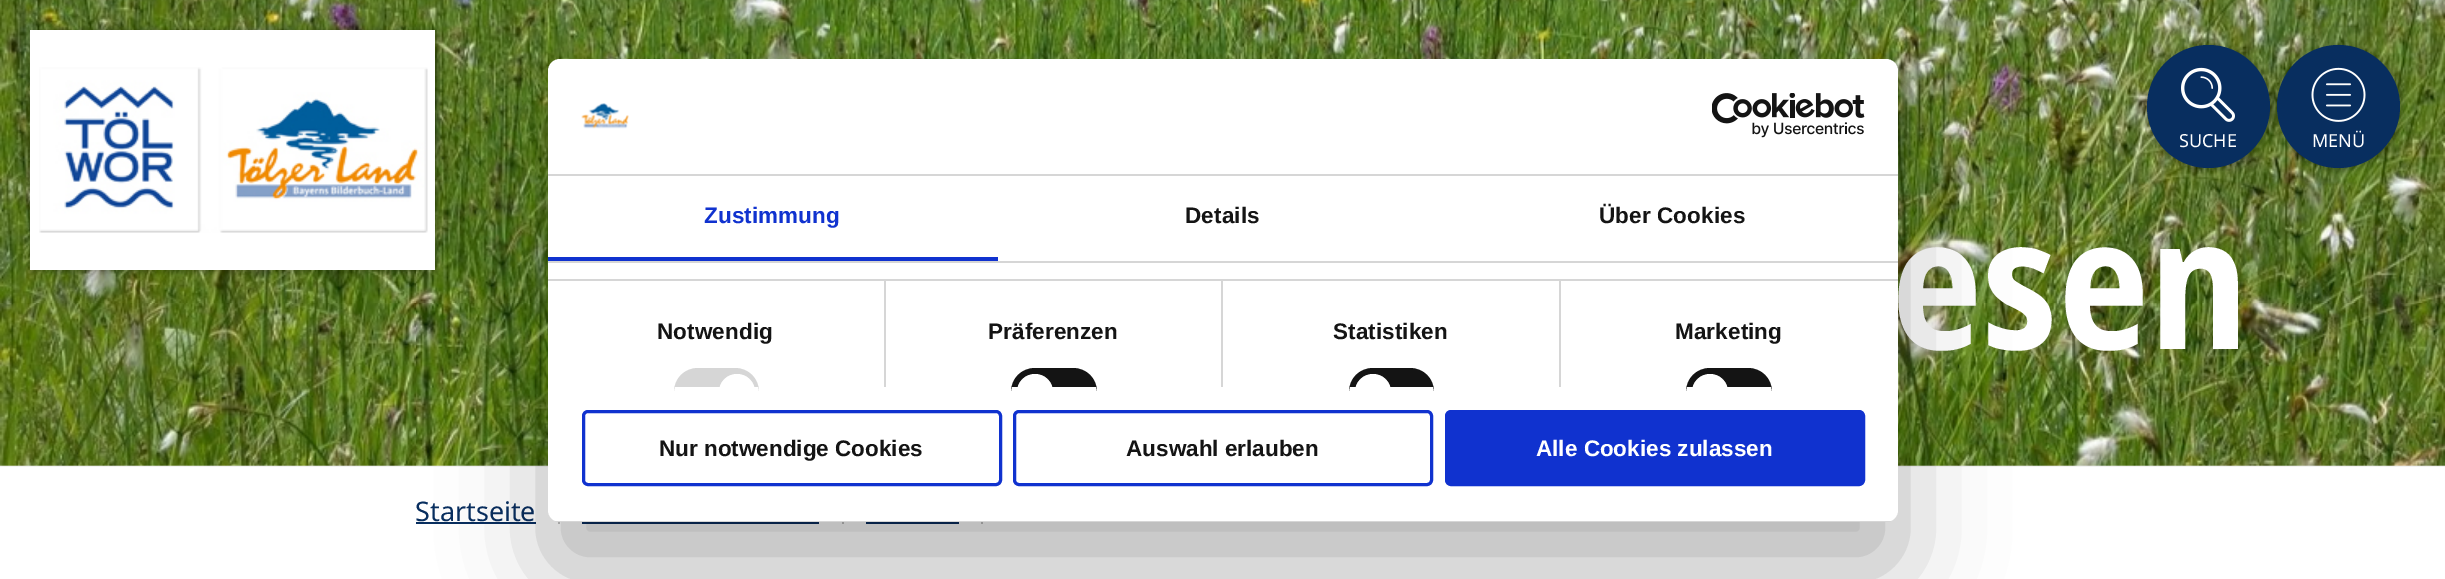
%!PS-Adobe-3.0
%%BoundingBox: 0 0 2445 579
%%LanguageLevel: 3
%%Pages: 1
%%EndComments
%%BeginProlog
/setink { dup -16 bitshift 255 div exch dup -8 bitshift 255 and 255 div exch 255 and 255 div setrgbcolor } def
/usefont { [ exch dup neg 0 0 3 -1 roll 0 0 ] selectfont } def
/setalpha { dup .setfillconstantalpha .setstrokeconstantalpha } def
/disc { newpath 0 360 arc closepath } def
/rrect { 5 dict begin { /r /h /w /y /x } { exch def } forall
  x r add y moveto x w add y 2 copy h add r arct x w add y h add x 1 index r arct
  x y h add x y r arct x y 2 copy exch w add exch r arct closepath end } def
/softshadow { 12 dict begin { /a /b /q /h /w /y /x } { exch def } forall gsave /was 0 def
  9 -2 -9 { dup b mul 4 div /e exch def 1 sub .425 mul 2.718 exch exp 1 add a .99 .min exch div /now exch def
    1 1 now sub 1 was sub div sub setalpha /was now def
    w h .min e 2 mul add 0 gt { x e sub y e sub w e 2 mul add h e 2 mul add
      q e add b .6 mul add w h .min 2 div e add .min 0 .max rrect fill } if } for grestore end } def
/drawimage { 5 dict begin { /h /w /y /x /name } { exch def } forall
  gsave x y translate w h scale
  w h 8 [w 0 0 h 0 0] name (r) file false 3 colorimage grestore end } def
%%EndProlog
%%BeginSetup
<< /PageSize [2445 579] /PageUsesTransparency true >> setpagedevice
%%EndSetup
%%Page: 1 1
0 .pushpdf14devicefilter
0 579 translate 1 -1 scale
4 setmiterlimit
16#FFFFFF setink
0 0 2445 579 rectfill
16#F2F2F2 setink
0 465 2445 2 rectfill
(img4.raw) 0 0 2445 466 drawimage
16#000000 setink
30 30 408 243 0 3 0.25 softshadow
16#FFFFFF setink
30 30 405 240 rectfill
(img1.raw) 39 67 389 166 drawimage
16#000000 setink
2147 45 126 126 63 3 0.25 softshadow
16#082E5F setink
2208.5 106.5 61.5 disc fill
(img2.raw) 2181 67 54 55 drawimage
/NotoSans-Regular 18 usefont
16#FFFFFF setink
2179 147 moveto (SUCHE) show
16#000000 setink
2277 45 126 126 63 3 0.25 softshadow
16#082E5F setink
2338.5 106.5 61.5 disc fill
(img3.raw) 2311 67 55 55 drawimage
16#FFFFFF setink
2312 147 moveto (MENÜ) show
/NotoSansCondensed-Bold 183 usefont
1891 349 moveto (esen) show
16#C2C2C2 setink
558 521 2 3 rectfill
/NotoSans-Regular 27 usefont
16#082E5F setink
415 521 moveto (Startseite) show
[
    [416 522 120 2 16#082E5F]
    [842 522 2 2 16#C2C2C2]
    [582 522 237 2 16#082E5F]
    [981 522 2 2 16#C2C2C2]
    [866 522 93 2 16#082E5F]
] { aload pop setink rectfill } forall
16#000000 setink
548 107 1350 463 12 51 0.3 softshadow
16#FFFFFF setink
548 59 1350 463 12 rrect fill
16#D6D6D6 setink
548 174 1350 2 rectfill
(img5.raw) 581 103 48 26 drawimage
(img6.raw) 1712 93 153 45 drawimage
548 261 1350 2 rectfill
16#1032CF setink
548 257 450 4 rectfill
/LiberationSans-Bold 22.5 usefont
704 223 moveto 0.1 0 (Zustimmung) ashow
16#141414 setink
1185 223 moveto 0.1 0 (Details) ashow
1599 223 moveto 0.1 0 (Über Cookies) ashow
16#D6D6D6 setink
548 279 1350 2 rectfill
884 281 2 106 rectfill
16#141414 setink
657 339 moveto 0.1 0 (Notwendig) ashow
16#D6D6D6 setink
698 368 moveto 735 368 lineto 748.5 368 759 378.5 759 392 curveto 759 387 lineto 674 387 lineto 674 392 lineto 674 378.5 684.5 368 698 368 curveto closepath fill
16#FFFFFF setink
737 374 moveto 747 374 755 382 755 392 curveto 755 387 lineto 719 387 lineto 719 392 lineto 719 382 727 374 737 374 curveto closepath fill
16#D6D6D6 setink
1221 281 2 106 rectfill
16#141414 setink
988 339 moveto 0.1 0 (Präferenzen) ashow
1035 368 moveto 1073 368 lineto 1086.5 368 1097 378.5 1097 392 curveto 1097 387 lineto 1011 387 lineto 1011 392 lineto 1011 378.5 1021.5 368 1035 368 curveto closepath fill
16#FFFFFF setink
1035 374 moveto 1045 374 1053 382 1053 392 curveto 1053 387 lineto 1017 387 lineto 1017 392 lineto 1017 382 1025 374 1035 374 curveto closepath fill
16#D6D6D6 setink
1559 281 2 106 rectfill
16#141414 setink
1333 339 moveto 0.1 0 (Statistiken) ashow
1373 368 moveto 1410 368 lineto 1423.5 368 1434 378.5 1434 392 curveto 1434 387 lineto 1349 387 lineto 1349 392 lineto 1349 378.5 1359.5 368 1373 368 curveto closepath fill
16#FFFFFF setink
1373 374 moveto 1383 374 1391 382 1391 392 curveto 1391 387 lineto 1355 387 lineto 1355 392 lineto 1355 382 1363 374 1373 374 curveto closepath fill
16#141414 setink
1675 339 moveto 0.1 0 (Marketing) ashow
1710 368 moveto 1748 368 lineto 1761.5 368 1772 378.5 1772 392 curveto 1772 387 lineto 1686 387 lineto 1686 392 lineto 1686 378.5 1696.5 368 1710 368 curveto closepath fill
16#FFFFFF setink
1710 374 moveto 1720 374 1728 382 1728 392 curveto 1728 387 lineto 1692 387 lineto 1692 392 lineto 1692 382 1700 374 1710 374 curveto closepath fill
gsave
548 59 1350 463 12 rrect clip newpath
16#D6D6D6 setink
548 521 1350 1 rectfill
grestore
16#1032CF setink
3 setlinewidth
583.5 411.5 417 73 4.5 rrect stroke
16#141414 setink
659 456 moveto (Nur notwendige Cookies) show
16#1032CF setink
1014.5 411.5 417 73 4.5 rrect stroke
16#141414 setink
1126 456 moveto (Auswahl erlauben) show
16#1032CF setink
1446.5 411.5 417 73 4.5 rrect gsave fill grestore
stroke
16#FFFFFF setink
1536 456 moveto (Alle Cookies zulassen) show
.poppdf14devicefilter showpage
%%EOF
